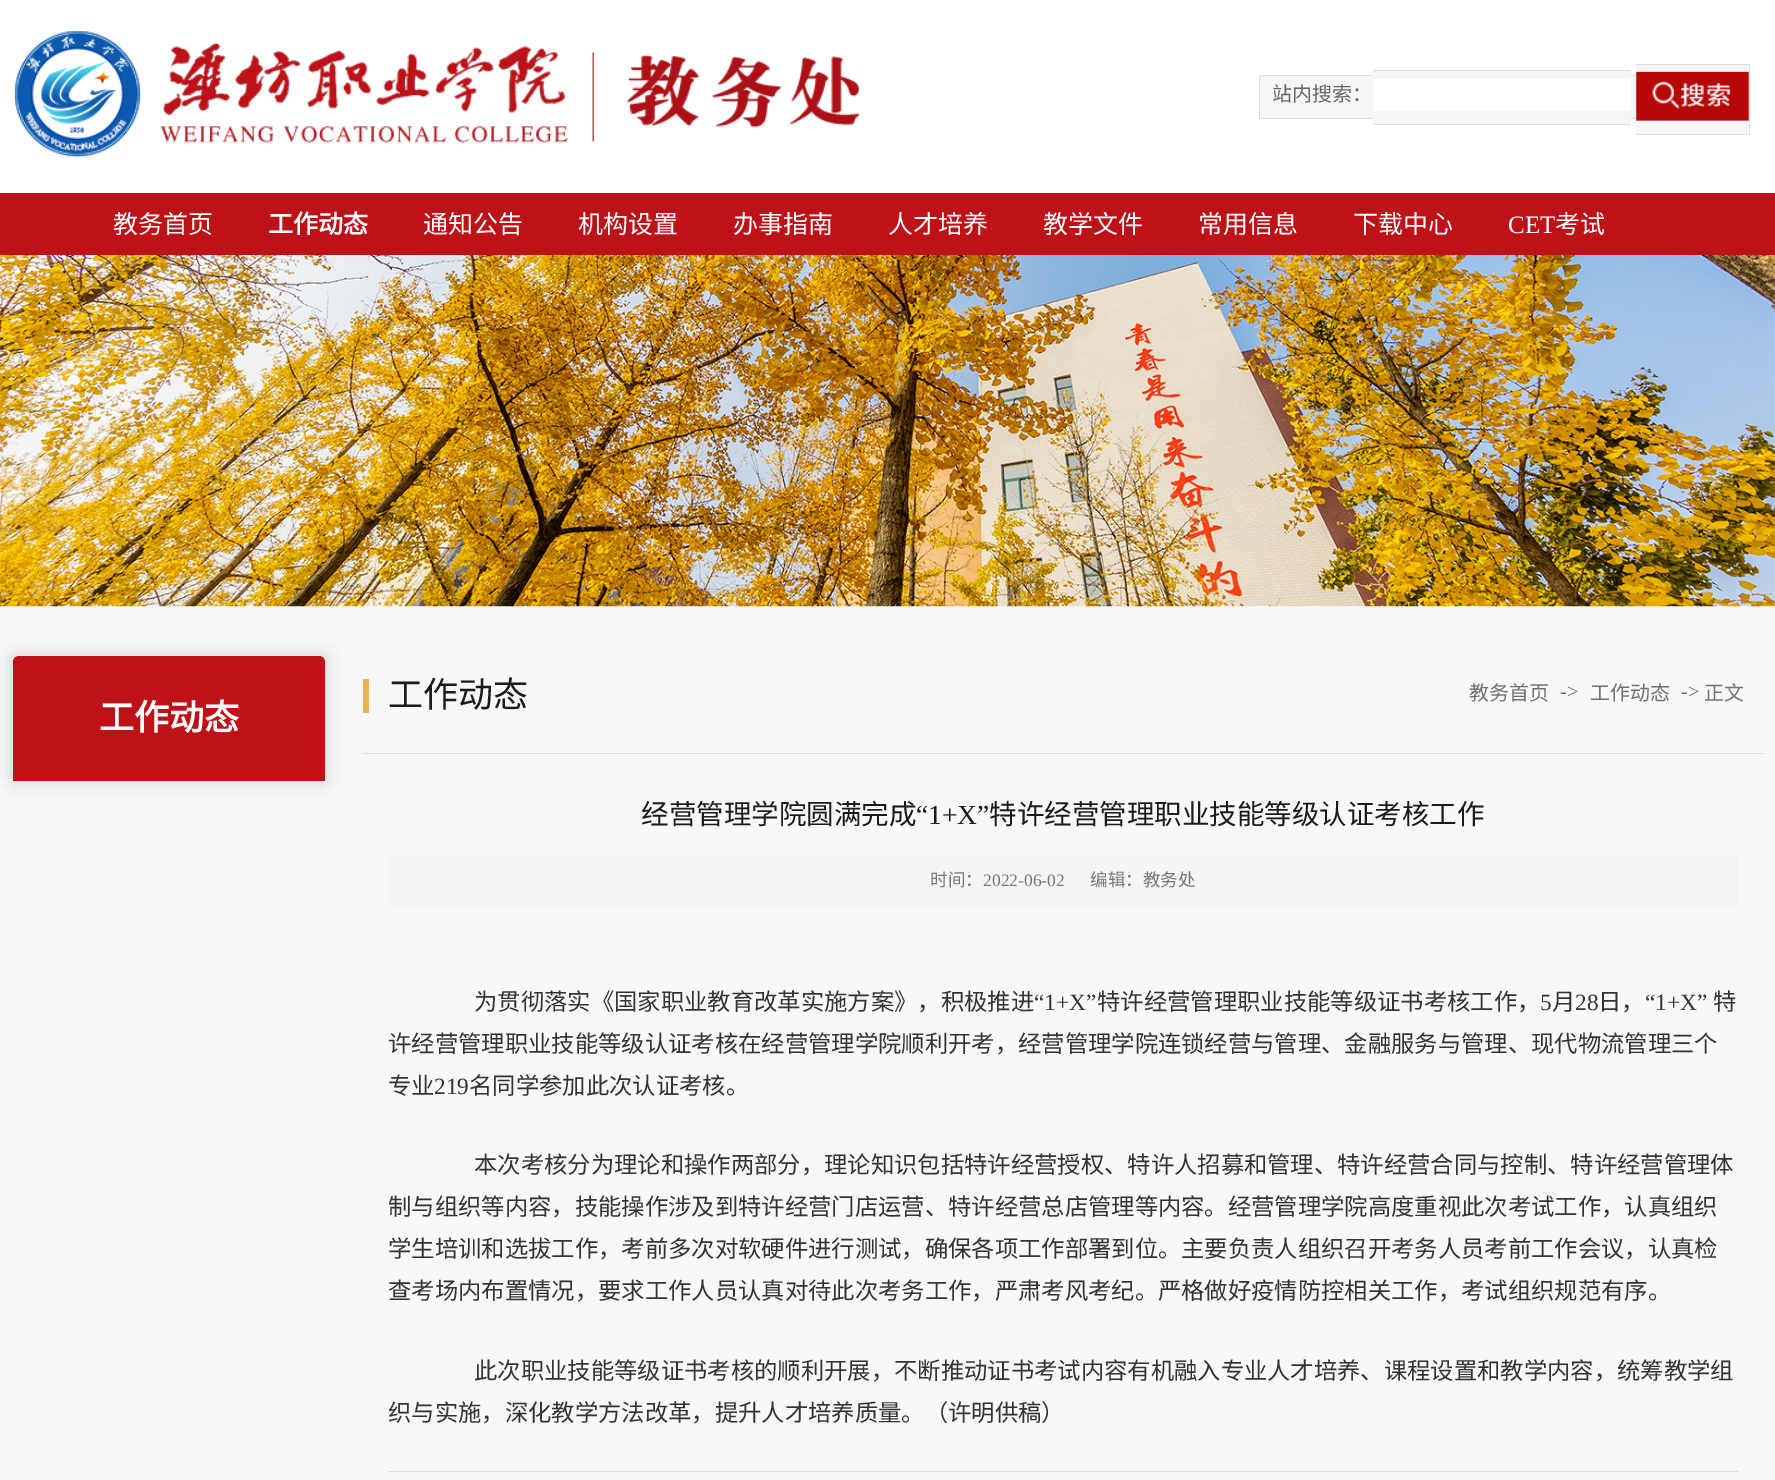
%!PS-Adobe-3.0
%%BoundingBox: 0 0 1775 1480
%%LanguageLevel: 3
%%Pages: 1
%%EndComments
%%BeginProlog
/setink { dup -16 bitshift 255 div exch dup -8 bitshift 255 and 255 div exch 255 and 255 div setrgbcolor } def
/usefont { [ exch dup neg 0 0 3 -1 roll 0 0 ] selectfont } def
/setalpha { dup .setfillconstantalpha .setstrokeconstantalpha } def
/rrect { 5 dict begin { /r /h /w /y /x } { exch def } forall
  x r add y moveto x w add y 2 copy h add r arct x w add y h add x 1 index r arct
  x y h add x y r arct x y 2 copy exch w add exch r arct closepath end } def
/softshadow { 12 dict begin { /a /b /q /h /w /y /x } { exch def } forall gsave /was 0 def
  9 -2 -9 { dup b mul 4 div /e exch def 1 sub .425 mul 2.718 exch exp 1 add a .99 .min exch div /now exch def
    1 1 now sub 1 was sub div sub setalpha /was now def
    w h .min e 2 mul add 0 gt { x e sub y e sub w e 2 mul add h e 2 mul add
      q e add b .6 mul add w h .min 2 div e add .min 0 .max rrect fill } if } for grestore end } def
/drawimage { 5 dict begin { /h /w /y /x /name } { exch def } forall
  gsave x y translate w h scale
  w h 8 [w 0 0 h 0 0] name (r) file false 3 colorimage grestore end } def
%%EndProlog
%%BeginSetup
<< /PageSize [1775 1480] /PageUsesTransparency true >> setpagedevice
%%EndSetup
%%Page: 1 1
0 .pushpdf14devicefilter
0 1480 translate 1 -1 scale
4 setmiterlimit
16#FFFFFF setink
0 0 1775 1480 rectfill
(img1.raw) 14 31 846 126 drawimage
[
    [1260 76 113 42 16#F6F6F6]
    [1259 75 114 1 16#DDDDDD]
    [1259 118 114 1 16#DDDDDD]
    [1259 75 1 44 16#DDDDDD]
    [1373 71 258 53 16#F6F6F6]
    [1373 70 258 1 16#DDDDDD]
    [1373 124 258 1 16#DDDDDD]
    [1631 75 5 44 16#F6F6F6]
    [1631 75 5 1 16#DDDDDD]
    [1631 118 5 1 16#DDDDDD]
    [1636 65 113 69 16#F6F6F6]
    [1636 64 114 1 16#DDDDDD]
    [1749 64 1 71 16#DDDDDD]
    [1636 134 114 1 16#DDDDDD]
] { aload pop setink rectfill } forall
/NotoSansCJKSC-Regular 20 usefont
16#666666 setink
1272 101 moveto (站内搜索：) show
16#FFFFFF setink
1373 79 258 32 rectfill
(img2.raw) 1636 71 113 50 drawimage
16#BE1219 setink
0 193 1775 62 rectfill
/NotoSansCJKSC-Regular 25 usefont
16#FFFFFF setink
113 233 moveto (教务首页) show
/NotoSansCJKSC-Bold 25 usefont
268 233 moveto (工作动态) show
/NotoSansCJKSC-Regular 25 usefont
[
    [(通知公告) 423 233]
    [(机构设置) 578 233]
    [(办事指南) 733 233]
    [(人才培养) 888 233]
    [(教学文件) 1043 233]
    [(常用信息) 1198 233]
    [(下载中心) 1353 233]
] { aload pop moveto show } forall
/LiberationSerif-Regular 25 usefont
1508 233 moveto (CET) show
/NotoSansCJKSC-Regular 25 usefont
1555 233 moveto (考试) show
16#F8F8F8 setink
0 606 1775 874 rectfill
(img3.raw) 0 255 1775 352 drawimage
gsave
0 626 moveto 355 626 lineto 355 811 lineto 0 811 lineto closepath 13 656 moveto 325 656 lineto 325 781 lineto 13 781 lineto closepath eoclip newpath
16#000000 setink
13 656 312 125 0 9.5 0.15 softshadow
grestore
16#BE1219 setink
19 656 moveto 319 656 lineto 322.5 656 325 658.5 325 662 curveto 325 781 lineto 13 781 lineto 13 662 lineto 13 658.5 15.5 656 19 656 curveto closepath fill
/NotoSansCJKSC-Bold 35 usefont
16#FFFFFF setink
99 730 moveto (工作动态) show
16#DDDDDD setink
363 753 1400 1 rectfill
16#E8B350 setink
363 679 6 34 rectfill
/NotoSansCJKSC-Regular 35 usefont
16#1B1B1B setink
388 707 moveto (工作动态) show
/NotoSansCJKSC-Regular 20 usefont
16#717171 setink
1469 700 moveto (教务首页) show
/LiberationSerif-Regular 20 usefont
1560 698 moveto (->) show
/NotoSansCJKSC-Regular 20 usefont
1590 700 moveto (工作动态) show
/LiberationSerif-Regular 20 usefont
1681 698 moveto (->) show
/NotoSansCJKSC-Regular 20 usefont
1704 700 moveto (正文) show
/NotoSansCJKSC-Regular 27.5 usefont
16#1B1B1B setink
641 824 moveto (经营管理学院圆满完成) show
/LiberationSerif-Regular 27.5 usefont
916 824 moveto (“1+X”) show
/NotoSansCJKSC-Regular 27.5 usefont
989 824 moveto (特许经营管理职业技能等级认证考核工作) show
16#F5F5F5 setink
388 856 1350 50 rectfill
/NotoSansCJKSC-Regular 17.5 usefont
16#777777 setink
930 886 moveto (时间：) show
/LiberationSerif-Regular 17.5 usefont
983 886 moveto (2022-06-02) show
/NotoSansCJKSC-Regular 17.5 usefont
1090 886 moveto (编辑：教务处) show
/NotoSansCJKSC-Regular 23.33 usefont
16#333333 setink
474 1010 moveto (为贯彻落实《国家职业教育改革实施方案》，积极推进) show
/LiberationSerif-Regular 23.33 usefont
1034 1010 moveto (“1+X”) show
/NotoSansCJKSC-Regular 23.33 usefont
1097 1010 moveto (特许经营管理职业技能等级证书考核工作，) show
/LiberationSerif-Regular 23.33 usefont
1540 1010 moveto (5) show
/NotoSansCJKSC-Regular 23.33 usefont
1552 1010 moveto (月) show
/LiberationSerif-Regular 23.33 usefont
1575 1010 moveto (28) show
/NotoSansCJKSC-Regular 23.33 usefont
1598 1010 moveto (日，) show
/LiberationSerif-Regular 23.33 usefont
1645 1010 moveto (“1+X”) show
/NotoSansCJKSC-Regular 23.33 usefont
[
    [(特) 1713 1010]
    [(许经营管理职业技能等级认证考核在经营管理学院顺利开考，经营管理学院连锁经营与管理、金融服务与管理、现代物流管理三个) 388 1052]
    [(专业) 388 1094]
] { aload pop moveto show } forall
/LiberationSerif-Regular 23.33 usefont
434 1094 moveto (219) show
/NotoSansCJKSC-Regular 23.33 usefont
[
    [(名同学参加此次认证考核。) 469 1094]
    [(本次考核分为理论和操作两部分，理论知识包括特许经营授权、特许人招募和管理、特许经营合同与控制、特许经营管理体) 474 1173]
    [(制与组织等内容，技能操作涉及到特许经营门店运营、特许经营总店管理等内容。经营管理学院高度重视此次考试工作，认真组织) 388 1215]
    [(学生培训和选拔工作，考前多次对软硬件进行测试，确保各项工作部署到位。主要负责人组织召开考务人员考前工作会议，认真检) 388 1257]
    [(查考场内布置情况，要求工作人员认真对待此次考务工作，严肃考风考纪。严格做好疫情防控相关工作，考试组织规范有序。) 388 1299]
    [(此次职业技能等级证书考核的顺利开展，不断推动证书考试内容有机融入专业人才培养、课程设置和教学内容，统筹教学组) 474 1379]
    [(织与实施，深化教学方法改革，提升人才培养质量。（许明供稿）) 388 1421]
] { aload pop moveto show } forall
16#DDDDDD setink
388 1471 1350 1 rectfill
.poppdf14devicefilter showpage
%%EOF
